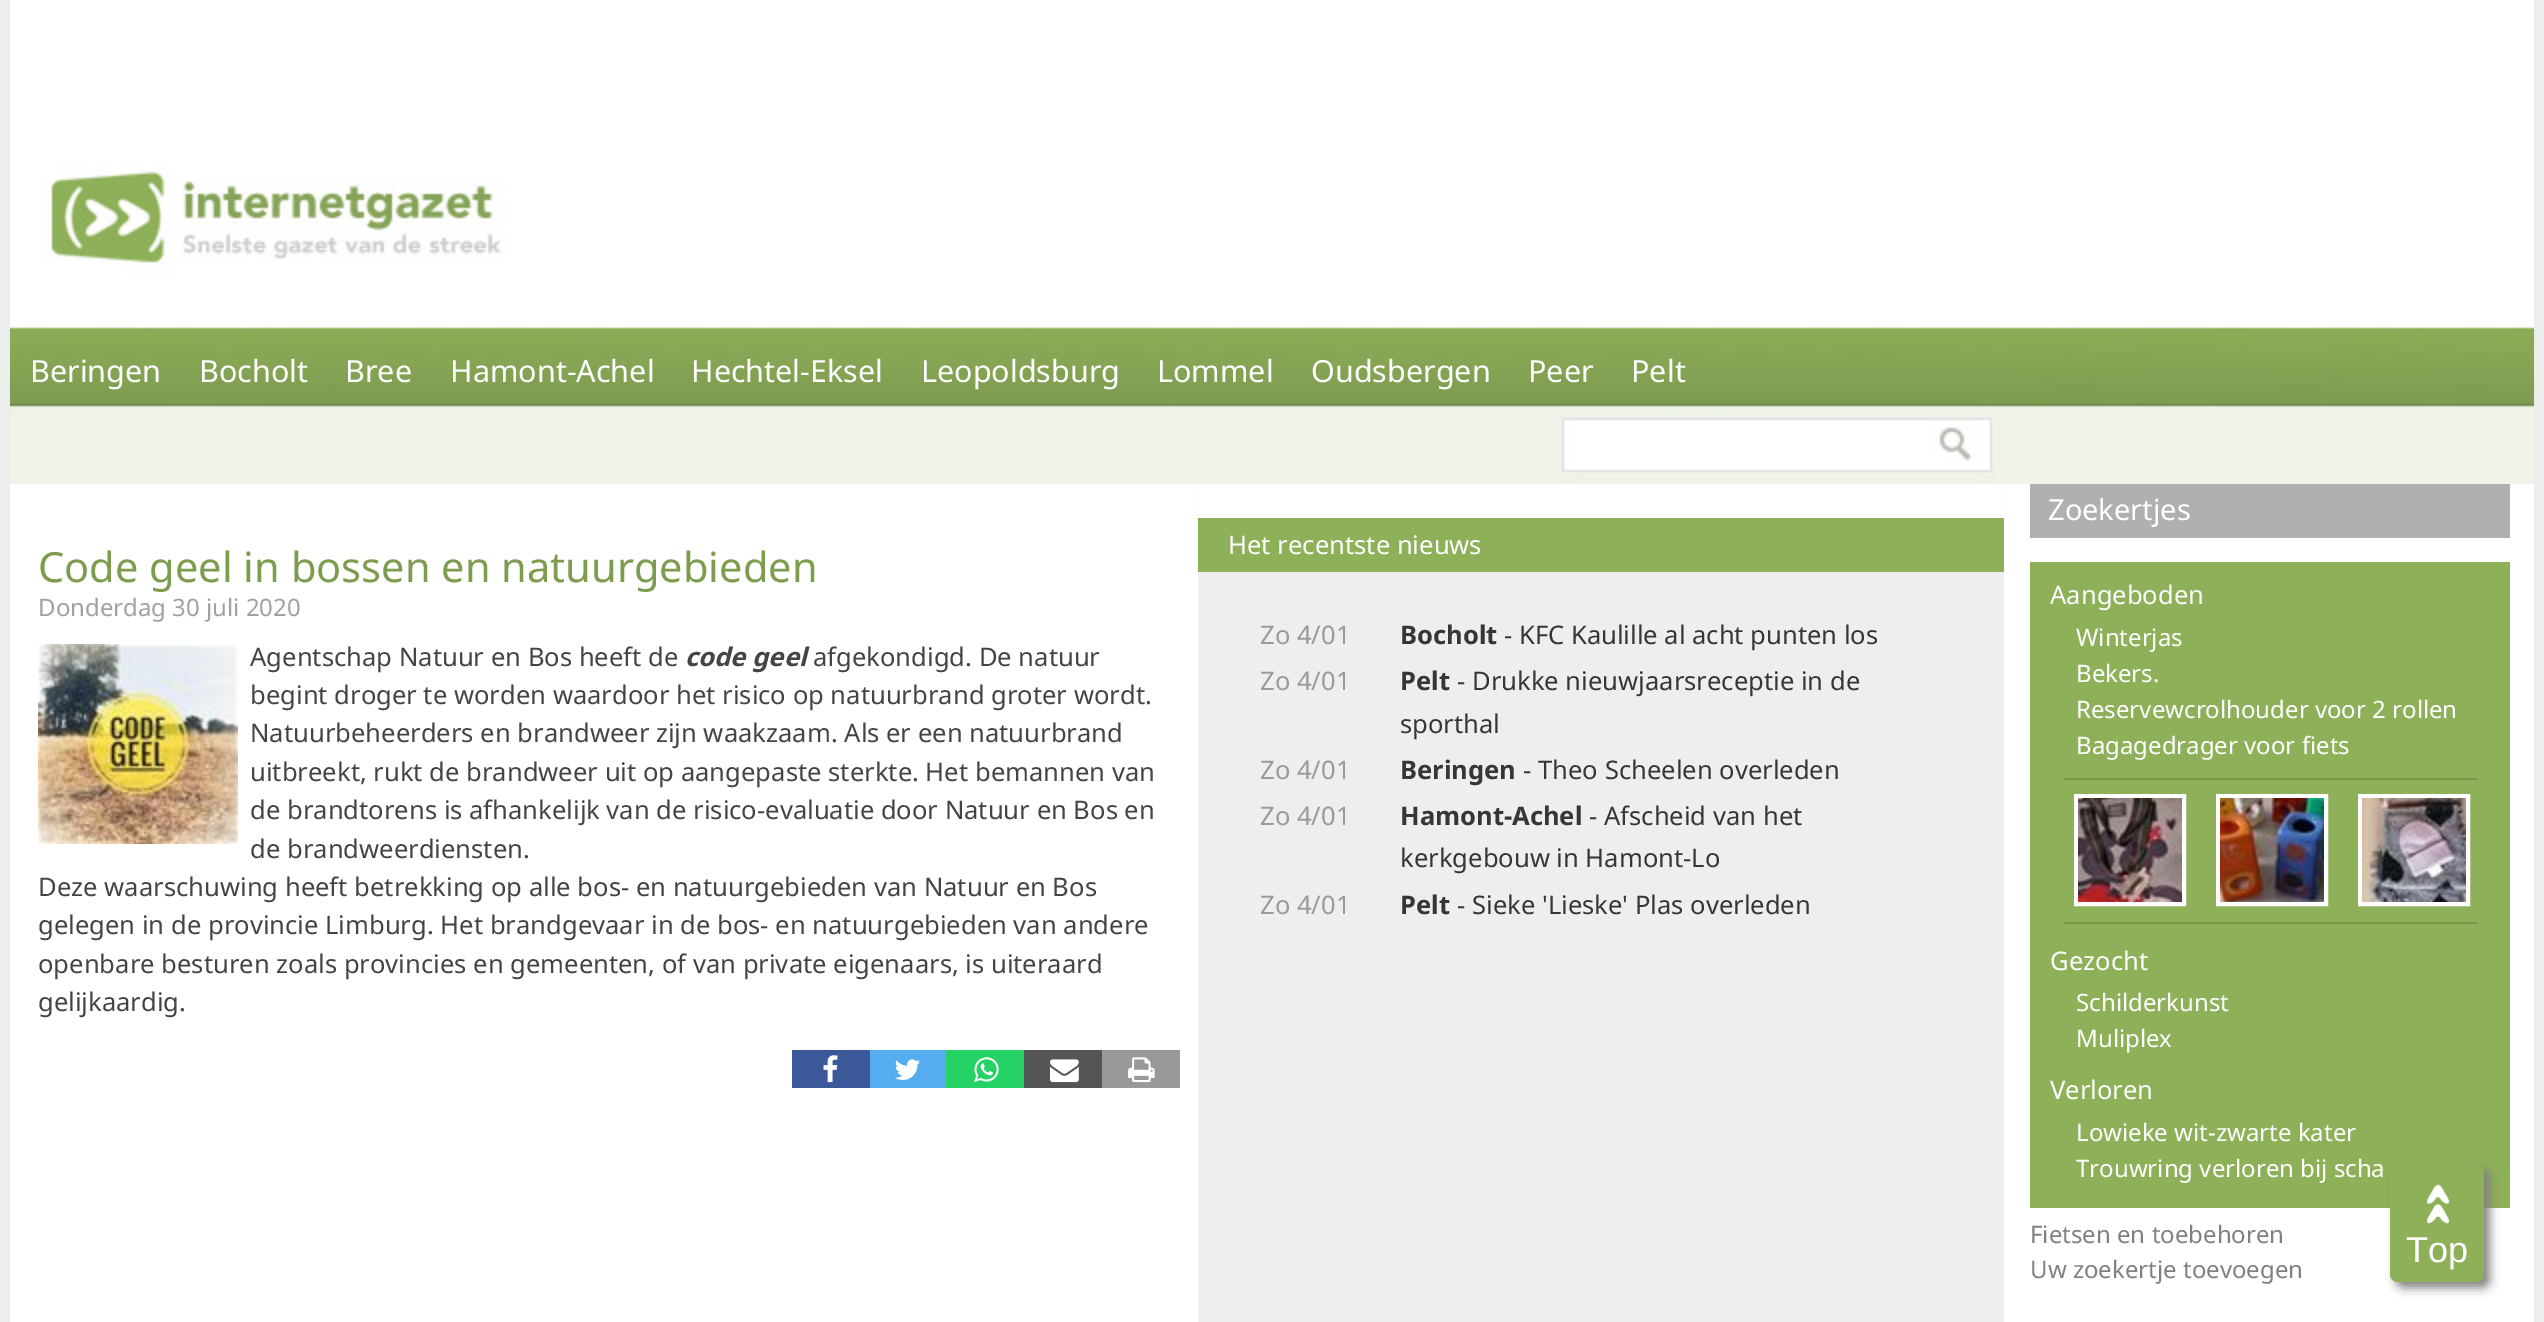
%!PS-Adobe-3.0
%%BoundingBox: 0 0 2544 1322
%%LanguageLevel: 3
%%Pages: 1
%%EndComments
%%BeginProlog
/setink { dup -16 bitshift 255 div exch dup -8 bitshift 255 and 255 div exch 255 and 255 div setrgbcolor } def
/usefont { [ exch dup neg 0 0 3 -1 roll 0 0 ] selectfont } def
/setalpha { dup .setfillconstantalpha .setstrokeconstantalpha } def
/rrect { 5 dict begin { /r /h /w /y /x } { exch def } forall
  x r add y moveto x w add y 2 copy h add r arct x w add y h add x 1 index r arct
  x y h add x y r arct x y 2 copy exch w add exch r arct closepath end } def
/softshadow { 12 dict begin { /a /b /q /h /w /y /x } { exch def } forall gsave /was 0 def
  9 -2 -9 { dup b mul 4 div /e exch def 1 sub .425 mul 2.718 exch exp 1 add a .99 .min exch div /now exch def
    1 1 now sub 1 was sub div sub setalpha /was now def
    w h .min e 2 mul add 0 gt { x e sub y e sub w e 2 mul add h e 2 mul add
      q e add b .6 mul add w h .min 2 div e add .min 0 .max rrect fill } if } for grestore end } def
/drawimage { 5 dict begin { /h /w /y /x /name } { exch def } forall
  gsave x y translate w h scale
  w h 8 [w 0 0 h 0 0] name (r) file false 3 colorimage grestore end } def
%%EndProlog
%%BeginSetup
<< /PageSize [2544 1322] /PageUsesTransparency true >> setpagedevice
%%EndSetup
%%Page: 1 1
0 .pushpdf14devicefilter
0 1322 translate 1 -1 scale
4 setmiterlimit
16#EDEDED setink
0 0 2544 1322 rectfill
16#FFFFFF setink
10 0 2524 100 rectfill
(img1.raw) 10 484 2524 838 drawimage
(img2.raw) 10 100 2524 384 drawimage
/NotoSans-Regular 30.5 usefont
[
    [(Beringen) 30 382]
    [(Bocholt) 199 382]
    [(Bree) 345 382]
    [(Hamont-Achel) 450 382]
    [(Hechtel-Eksel) 691 382]
    [(Leopoldsburg) 921 382]
    [(Lommel) 1157 382]
    [(Oudsbergen) 1311 382]
    [(Peer) 1528 382]
    [(Pelt) 1631 382]
] { aload pop moveto show } forall
/NotoSans-Regular 41.6 usefont
16#7D9C4E setink
38 582 moveto (Code geel in bossen en natuurgebieden) show
/NotoSans-Regular 24 usefont
16#A1A1A1 setink
38 616 moveto (Donderdag 30 juli 2020) show
(img3.raw) 38 644 200 200 drawimage
/NotoSans-Regular 25.6 usefont
16#444444 setink
250 666 moveto (Agentschap Natuur en Bos heeft de) show
/NotoSans-BoldItalic 25.6 usefont
685 666 moveto (code geel) show
/NotoSans-Regular 25.6 usefont
[
    [(afgekondigd. De natuur) 813 666]
    [(begint droger te worden waardoor het risico op natuurbrand groter wordt.) 250 704]
    [(Natuurbeheerders en brandweer zijn waakzaam. Als er een natuurbrand) 250 742]
    [(uitbreekt, rukt de brandweer uit op aangepaste sterkte. Het bemannen van) 250 781]
    [(de brandtorens is afhankelijk van de risico-evaluatie door Natuur en Bos en) 250 819]
    [(de brandweerdiensten.) 250 858]
    [(Deze waarschuwing heeft betrekking op alle bos- en natuurgebieden van Natuur en Bos) 38 896]
    [(gelegen in de provincie Limburg. Het brandgevaar in de bos- en natuurgebieden van andere) 38 934]
    [(openbare besturen zoals provincies en gemeenten, of van private eigenaars, is uiteraard) 38 973]
    [(gelijkaardig.) 38 1011]
] { aload pop moveto show } forall
16#3B5998 setink
792 1050 78 38 rectfill
(img4.raw) 823 1055 15 28 drawimage
16#55ACEE setink
870 1050 76 38 rectfill
(img5.raw) 895 1059 25 21 drawimage
16#24D266 setink
946 1050 78 38 rectfill
(img6.raw) 974 1057 25 26 drawimage
16#555555 setink
1024 1050 78 38 rectfill
(img7.raw) 1050 1059 29 24 drawimage
16#999999 setink
1102 1050 78 38 rectfill
(img8.raw) 1128 1057 27 26 drawimage
16#FFFFFF setink
1198 484 806 34 rectfill
16#8EB059 setink
1198 518 806 54 rectfill
16#FFFFFF setink
1228 554 moveto (Het recentste nieuws) show
16#9A9A9A setink
1260 644 moveto (Zo 4/01) show
/NotoSans-Bold 25.6 usefont
16#363636 setink
1400 644 moveto (Bocholt) show
/NotoSans-Regular 25.6 usefont
1504 644 moveto (- KFC Kaulille al acht punten los) show
16#9A9A9A setink
1260 690 moveto (Zo 4/01) show
/NotoSans-Bold 25.6 usefont
16#363636 setink
1400 690 moveto (Pelt) show
/NotoSans-Regular 25.6 usefont
1457 690 moveto (- Drukke nieuwjaarsreceptie in de) show
1400 733 moveto (sporthal) show
16#9A9A9A setink
1260 779 moveto (Zo 4/01) show
/NotoSans-Bold 25.6 usefont
16#363636 setink
1400 779 moveto (Beringen) show
/NotoSans-Regular 25.6 usefont
1523 779 moveto (- Theo Scheelen overleden) show
16#9A9A9A setink
1260 825 moveto (Zo 4/01) show
/NotoSans-Bold 25.6 usefont
16#363636 setink
1400 825 moveto (Hamont-Achel) show
/NotoSans-Regular 25.6 usefont
1589 825 moveto (- Afscheid van het) show
1400 867 moveto (kerkgebouw in Hamont-Lo) show
16#9A9A9A setink
1260 914 moveto (Zo 4/01) show
/NotoSans-Bold 25.6 usefont
16#363636 setink
1400 914 moveto (Pelt) show
/NotoSans-Regular 25.6 usefont
1457 914 moveto (- Sieke 'Lieske' Plas overleden) show
16#B0B0B0 setink
2030 484 480 54 rectfill
/NotoSans-Regular 29 usefont
16#FFFFFF setink
2048 520 moveto (Zoekertjes) show
16#8EB059 setink
2030 562 480 646 rectfill
/NotoSans-Regular 25.6 usefont
16#FFFFFF setink
2050 604 moveto (Aangeboden) show
/NotoSans-Regular 24 usefont
[
    [(Winterjas) 2076 646]
    [(Bekers.) 2076 682]
    [(Reservewcrolhouder voor 2 rollen) 2076 718]
    [(Bagagedrager voor fiets) 2076 754]
] { aload pop moveto show } forall
16#79964C setink
2064 778 414 2 rectfill
2064 922 414 2 rectfill
16#FFFFFF setink
4 setlinewidth
2076 796 108 108 rectstroke
(img9.raw) 2078 798 104 104 drawimage
2218 796 108 108 rectstroke
(img10.raw) 2220 798 104 104 drawimage
2360 796 108 108 rectstroke
(img11.raw) 2362 798 104 104 drawimage
/NotoSans-Regular 25.6 usefont
2050 970 moveto (Gezocht) show
/NotoSans-Regular 24 usefont
2076 1011 moveto (Schilderkunst) show
2076 1047 moveto (Muliplex) show
/NotoSans-Regular 25.6 usefont
2050 1099 moveto (Verloren) show
/NotoSans-Regular 24 usefont
2076 1141 moveto (Lowieke wit-zwarte kater) show
2076 1177 moveto (Trouwring verloren bij scha) show
16#808080 setink
2030 1243 moveto (Fietsen en toebehoren) show
2030 1278 moveto (Uw zoekertje toevoegen) show
2396 1170 94 118 8 5 1 softshadow
16#8EB059 setink
2390 1164 94 118 8 rrect fill
(img12.raw) 2426 1184 24 40 drawimage
/LiberationSans-Regular 36 usefont
16#FFFFFF setink
2406 1262 moveto (Top) show
.poppdf14devicefilter showpage
%%EOF
